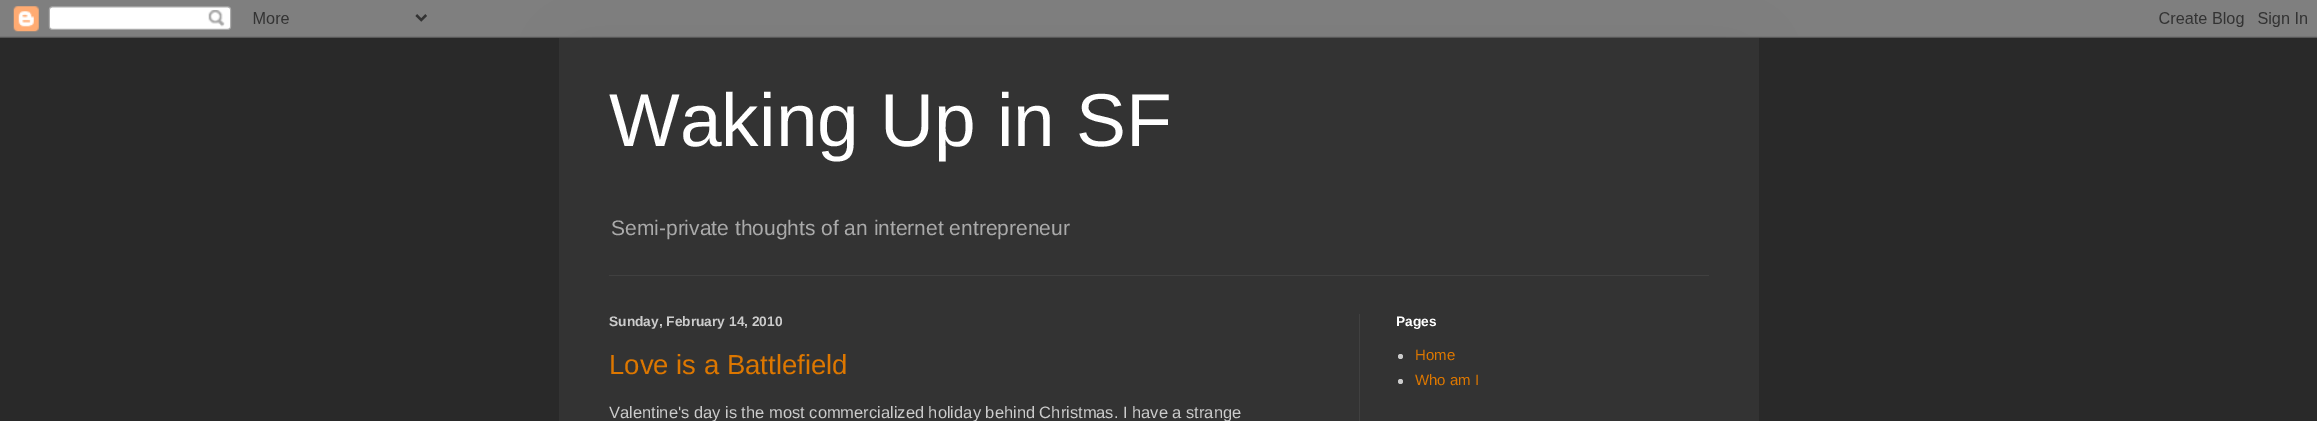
%!PS-Adobe-3.0
%%BoundingBox: 0 0 2317 421
%%LanguageLevel: 3
%%Pages: 1
%%EndComments
%%BeginProlog
/setink { dup -16 bitshift 255 div exch dup -8 bitshift 255 and 255 div exch 255 and 255 div setrgbcolor } def
/usefont { [ exch dup neg 0 0 3 -1 roll 0 0 ] selectfont } def
/disc { newpath 0 360 arc closepath } def
/drawimage { 5 dict begin { /h /w /y /x /name } { exch def } forall
  gsave x y translate w h scale
  w h 8 [w 0 0 h 0 0] name (r) file false 3 colorimage grestore end } def
%%EndProlog
%%BeginSetup
<< /PageSize [2317 421] >> setpagedevice
%%EndSetup
%%Page: 1 1
0 421 translate 1 -1 scale
4 setmiterlimit
16#292929 setink
0 0 2317 421 rectfill
(img1.raw) 0 0 2317 38 drawimage
16#333333 setink
559 38 1200 383 rectfill
/LiberationSans-Regular 75 usefont
16#FFFFFF setink
609 146 moveto (Waking Up in SF) show
/LiberationSans-Regular 21 usefont
16#AAAAAA setink
611 235 moveto (Semi-private thoughts of an internet entrepreneur) show
16#404040 setink
609 275 1100 1 rectfill
1359 314 1 107 rectfill
/LiberationSans-Bold 13.75 usefont
16#CCCCCC setink
609 326 moveto (Sunday, February 14, 2010) show
/LiberationSans-Regular 27.5 usefont
16#DD7700 setink
609 374 moveto (Love is a Battlefield) show
/LiberationSans-Regular 16.5 usefont
16#CCCCCC setink
609 418 moveto (Valentine's day is the most commercialized holiday behind Christmas. I have a strange) show
/LiberationSans-Bold 13.75 usefont
16#FFFFFF setink
1396 326 moveto (Pages) show
16#CCCCCC setink
1400.5 356.5 2.5 disc fill
/LiberationSans-Regular 15 usefont
16#DD7700 setink
1415 360 moveto (Home) show
16#CCCCCC setink
1400.5 381.5 2.5 disc fill
16#DD7700 setink
1415 385 moveto (Who am I) show
showpage
%%EOF
